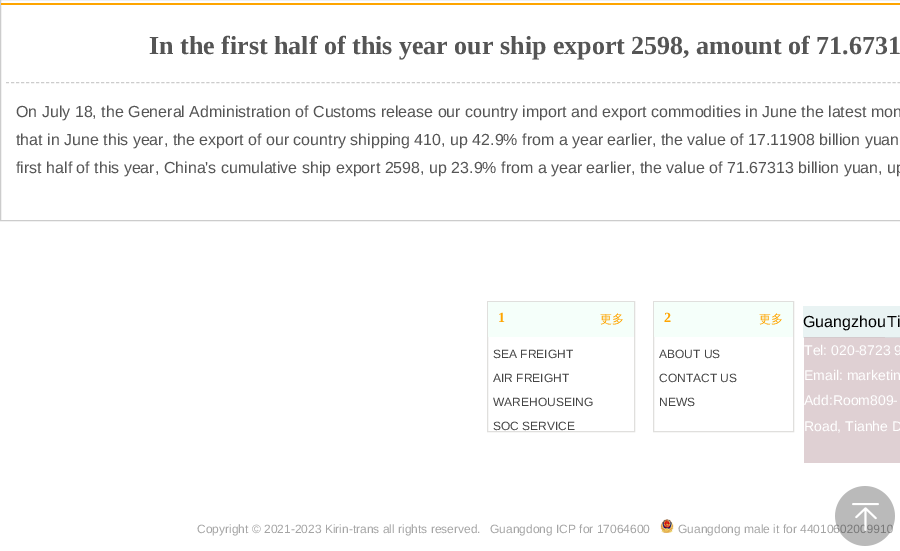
%!PS-Adobe-3.0
%%BoundingBox: 0 0 900 551
%%LanguageLevel: 3
%%Pages: 1
%%EndComments
%%BeginProlog
/setink { dup -16 bitshift 255 div exch dup -8 bitshift 255 and 255 div exch 255 and 255 div setrgbcolor } def
/usefont { [ exch dup neg 0 0 3 -1 roll 0 0 ] selectfont } def
/drawimage { 5 dict begin { /h /w /y /x /name } { exch def } forall
  gsave x y translate w h scale
  w h 8 [w 0 0 h 0 0] name (r) file false 3 colorimage grestore end } def
%%EndProlog
%%BeginSetup
<< /PageSize [900 551] >> setpagedevice
%%EndSetup
%%Page: 1 1
0 551 translate 1 -1 scale
4 setmiterlimit
16#FFFFFF setink
0 0 900 551 rectfill
[
    [885 306 15 31 16#E9F3F3]
    [804 338 96 125 16#DFD0D3]
    [885 337 15 1 16#D8D9DB]
] { aload pop setink rectfill } forall
16#CCCCCC setink
0.5 -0.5 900 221 rectstroke
16#FEA500 setink
1 3 899 2 rectfill
16#CCCCCC setink
[3 2.01] 0 setdash
6 82.5 moveto 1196 82.5 lineto stroke
/LiberationSerif-Bold 26 usefont
16#555555 setink
149 54 moveto (In the first half of this year our ship export 2598, amount of 71.6731) show
/LiberationSans-Regular 16 usefont
[
    [(On July 18, the General Administration of Customs release our country import and export commodities in June the latest mon) 16 117]
    [(that in June this year, the export of our country shipping 410, up 42.9% from a year earlier, the value of 17.11908 billion yuan) 16 145]
    [(first half of this year, China's cumulative ship export 2598, up 23.9% from a year earlier, the value of 71.67313 billion yuan, up) 16 173]
] { aload pop moveto show } forall
16#E0DFDD setink
[] 0 setdash
487.5 301.5 147 130 rectstroke
16#F5FFFA setink
488 302 146 35 rectfill
/LiberationSerif-Bold 14 usefont
16#FFA500 setink
498 322 moveto (1) show
/WenQuanYiZenHei-Medium 12 usefont
600 323 moveto (更多) show
/LiberationSans-Regular 12 usefont
16#444444 setink
[
    [(SEA FREIGHT) 493 358]
    [(AIR FREIGHT) 493 382]
    [(WAREHOUSEING) 493 406]
    [(SOC SERVICE) 493 430]
] { aload pop moveto show } forall
16#E0DFDD setink
653.5 301.5 140 130 rectstroke
16#F5FFFA setink
654 302 139 35 rectfill
/LiberationSerif-Bold 14 usefont
16#FFA500 setink
664 322 moveto (2) show
/WenQuanYiZenHei-Medium 12 usefont
759 323 moveto (更多) show
/LiberationSans-Regular 12 usefont
16#444444 setink
[
    [(ABOUT US) 659 358]
    [(CONTACT US) 659 382]
    [(NEWS) 659 406]
] { aload pop moveto show } forall
16#E9F3F3 setink
803 306 82 32 rectfill
16#D4CACD setink
804 337 81 1 rectfill
/LiberationSans-Regular 16 usefont
16#000000 setink
803 327 moveto (Guangzhou) show
887 327 moveto (Ti) show
/LiberationSans-Regular 14 usefont
16#FFFFFF setink
[
    [(Tel: 020-8723 9) 804 355]
    [(Email: marketin) 804 380]
    [(Add:Room809-) 804 405]
    [(Road, Tianhe D) 804 431]
] { aload pop moveto show } forall
/LiberationSans-Regular 12 usefont
16#A5A5A5 setink
678 533 moveto (Guangdong male it for 44010602009910) show
(img1.raw) 835 486 60 60 drawimage
197 533 moveto (Copyright © 2021-2023 Kirin-trans all rights reserved.) show
490 533 moveto (Guangdong ICP for 17064600) show
(img2.raw) 660 519 14 14 drawimage
showpage
%%EOF
